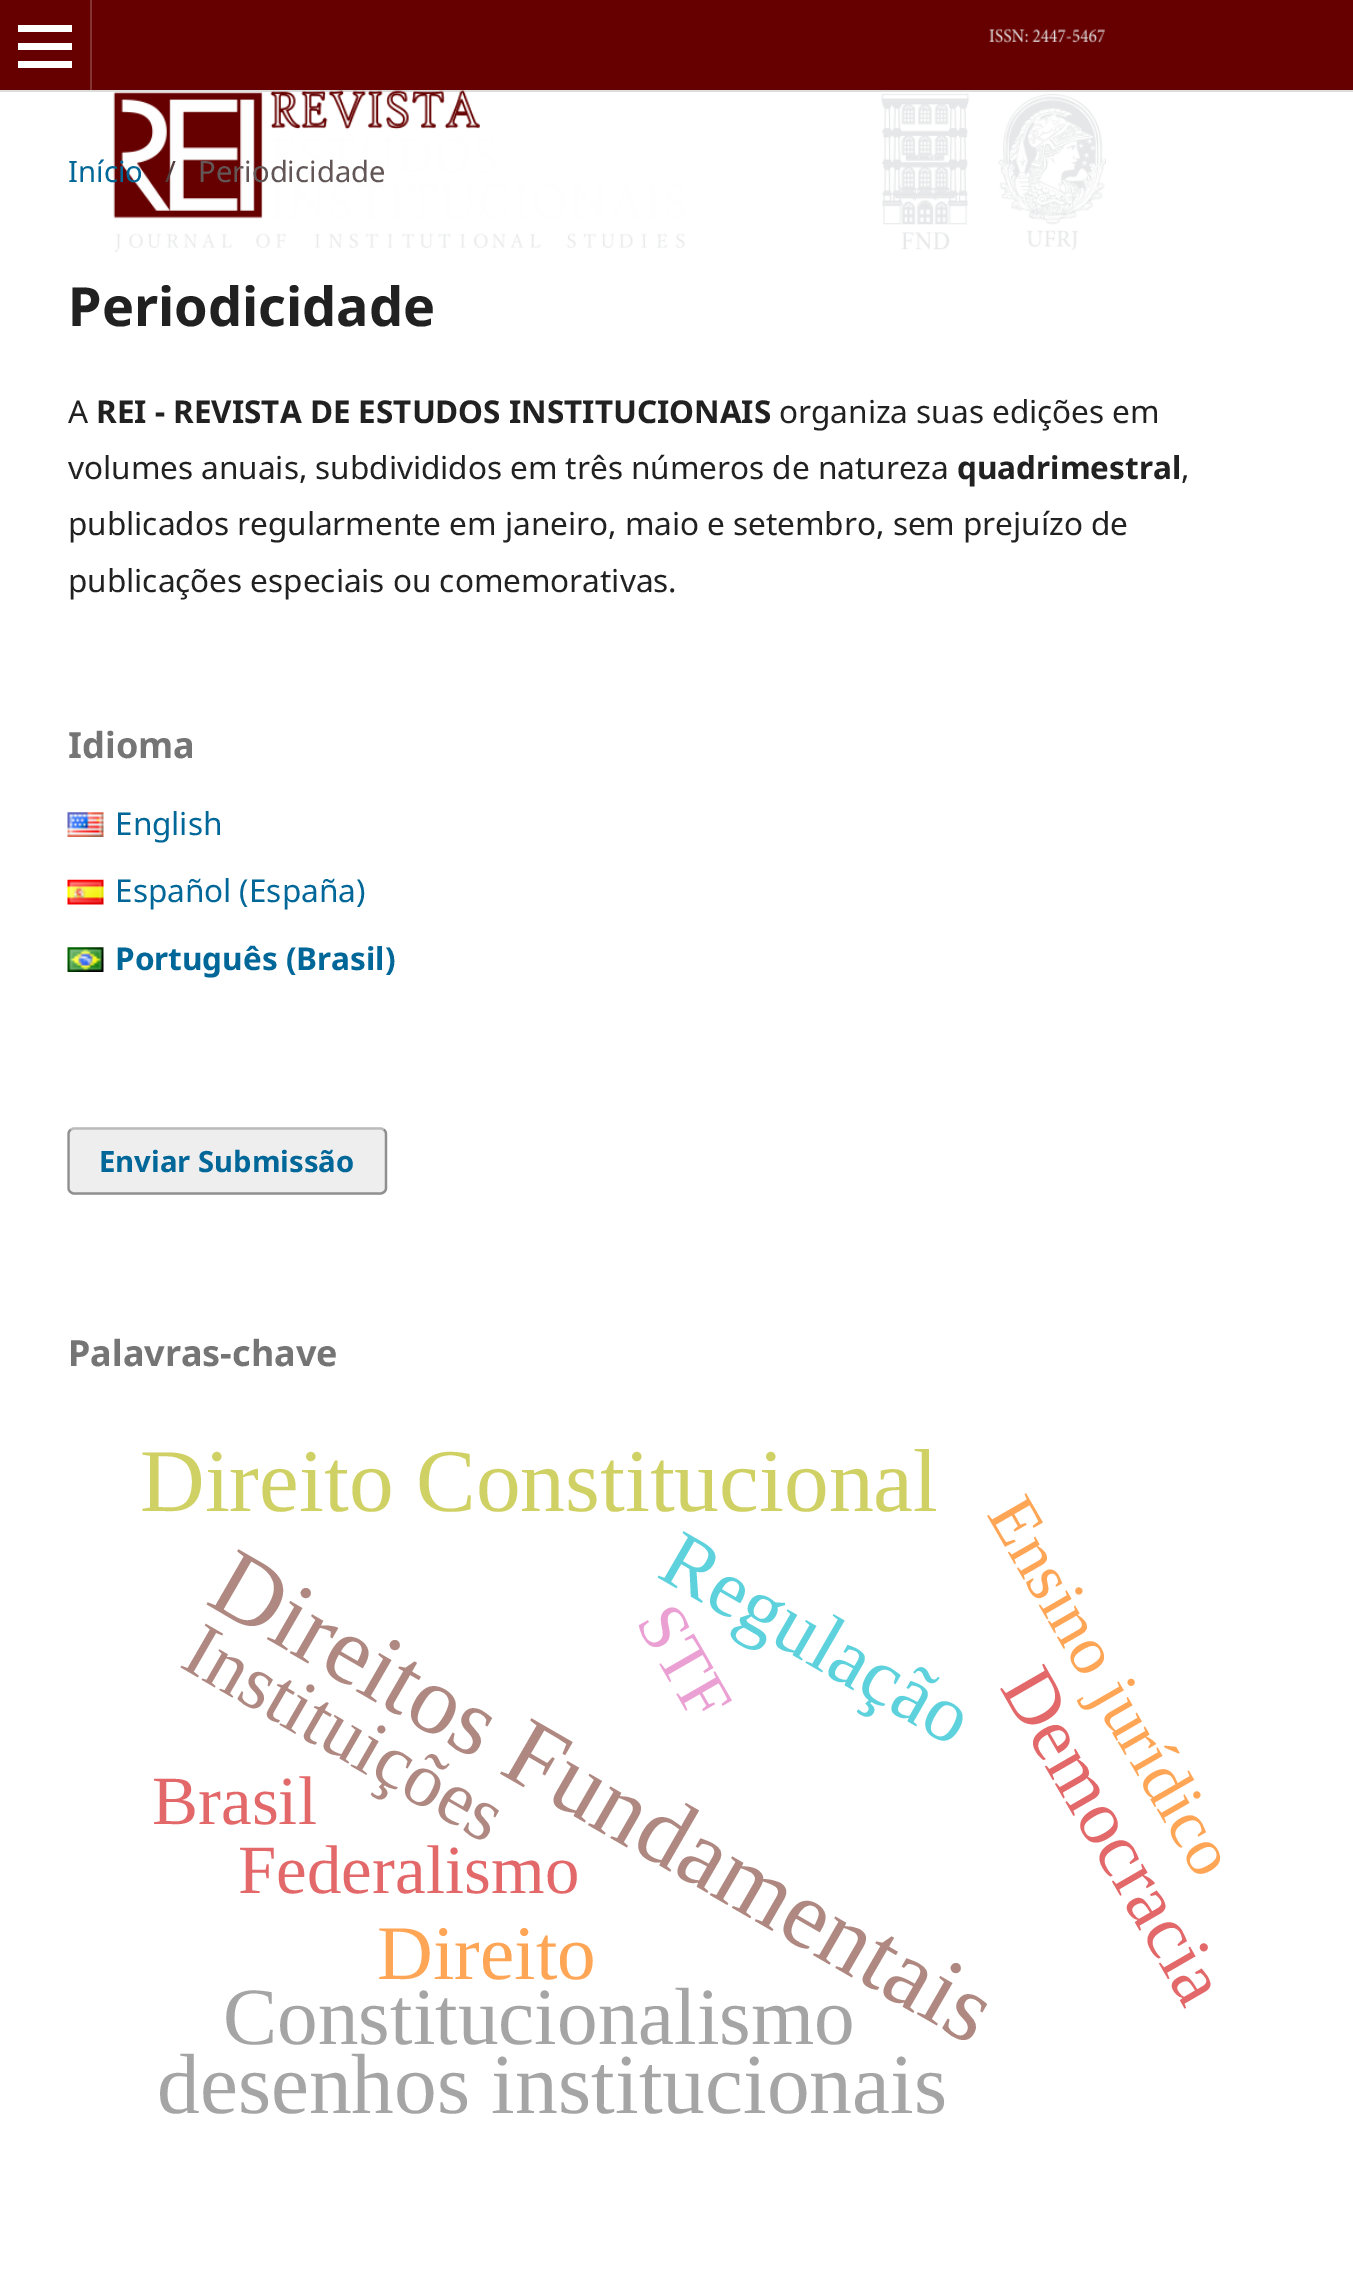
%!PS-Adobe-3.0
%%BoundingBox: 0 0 1353 2275
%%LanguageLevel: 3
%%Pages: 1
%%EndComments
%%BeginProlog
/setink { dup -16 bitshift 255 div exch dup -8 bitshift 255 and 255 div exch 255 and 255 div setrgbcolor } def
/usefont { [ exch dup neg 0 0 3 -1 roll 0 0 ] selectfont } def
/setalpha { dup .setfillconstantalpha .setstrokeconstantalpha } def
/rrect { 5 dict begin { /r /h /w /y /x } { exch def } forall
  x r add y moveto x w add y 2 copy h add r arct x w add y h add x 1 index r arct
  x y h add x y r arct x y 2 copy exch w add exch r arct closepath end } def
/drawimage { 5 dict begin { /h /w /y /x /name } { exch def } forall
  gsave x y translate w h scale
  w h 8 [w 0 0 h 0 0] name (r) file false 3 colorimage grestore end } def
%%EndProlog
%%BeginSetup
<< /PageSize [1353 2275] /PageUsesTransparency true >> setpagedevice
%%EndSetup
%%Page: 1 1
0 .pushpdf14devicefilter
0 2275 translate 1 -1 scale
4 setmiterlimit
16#FFFFFF setink
0 0 1353 2275 rectfill
[
    [0 0 1353 90 16#660000]
    [0 90 1353 2 16#DDDDDD]
    [90 0 2 90 16#853333]
    [18 61 54 7 16#FFFFFF]
    [18 25 54 7 16#FFFFFF]
    [18 43 54 7 16#FFFFFF]
] { aload pop setink rectfill } forall
(img1.raw) 113 28 993 225 drawimage
/NotoSans-Regular 29.25 usefont
16#006798 setink
68 182 moveto (Início) show
16#533D3D setink
165 182 moveto (/) show
16#625656 setink
198 182 moveto (Periodicidade) show
/NotoSans-Bold 54 usefont
16#212121 setink
68 326 moveto (Periodicidade) show
/NotoSans-Regular 31.5 usefont
68 423 moveto (A) show
/NotoSans-Bold 31.5 usefont
96 423 moveto (REI - REVISTA DE ESTUDOS INSTITUCIONAIS) show
/NotoSans-Regular 31.5 usefont
779 423 moveto (organiza suas edições em) show
68 479 moveto (volumes anuais, subdivididos em três números de natureza) show
/NotoSans-Bold 31.5 usefont
957 479 moveto (quadrimestral) show
/NotoSans-Regular 31.5 usefont
[
    [(,) 1181 479]
    [(publicados regularmente em janeiro, maio e setembro, sem prejuízo de) 68 535]
    [(publicações especiais ou comemorativas.) 68 592]
] { aload pop moveto show } forall
/NotoSans-Bold 36 usefont
16#757575 setink
68 758 moveto (Idioma) show
(img2.raw) 67 812 37 25 drawimage
/NotoSans-Regular 31.5 usefont
16#006798 setink
115 835 moveto (English) show
(img3.raw) 67 879 37 26 drawimage
115 902 moveto (Español \(España\)) show
(img4.raw) 67 947 37 25 drawimage
/NotoSans-Bold 31.5 usefont
115 970 moveto (Português \(Brasil\)) show
16#EEEEEE setink
68 1127 319 68 7 rrect fill
16#BBBBBB setink
2.2 setlinewidth
70.5 1130 moveto 71.5 1129 73 1128.5 74 1128.5 curveto 380 1128.5 lineto 381.5 1128.5 383 1129 384 1130 curveto stroke
0.4 setalpha
16#000000 setink
384 1130 moveto 385.5 1131 386 1132.5 386 1134 curveto 386 1188 lineto 386 1189.5 385.5 1191 384 1192 curveto 383 1193 381.5 1193.5 380 1193.5 curveto 74 1193.5 lineto 73 1193.5 71.5 1193 70.5 1192 curveto 69 1191 68.5 1189.5 68.5 1188 curveto 68.5 1134 lineto 68.5 1132.5 69 1131 70.5 1130 curveto stroke
/NotoSans-Bold 29.25 usefont
1 setalpha
16#006798 setink
99 1172 moveto (Enviar Submissão) show
/NotoSans-Bold 36 usefont
16#757575 setink
68 1366 moveto (Palavras-chave) show
/LiberationSerif-Regular 89.5 usefont
16#D0D164 setink
140 1511 moveto (Direito Constitucional) show
/LiberationSerif-Regular 97.5 usefont
16#AF8981 setink
gsave 204 1603 translate 30 rotate 0 0 moveto (Direitos Fundamentais) show grestore
/LiberationSerif-Regular 81.25 usefont
16#5DD2DD setink
gsave 655 1576 translate 30 rotate 0 0 moveto (Regulação) show grestore
/LiberationSerif-Regular 77.25 usefont
16#E26869 setink
gsave 999 1687 translate 60 rotate 0 0 moveto (Democracia) show grestore
/LiberationSerif-Regular 69 usefont
16#FFA556 setink
gsave 986 1514 translate 60 rotate 0 0 moveto (Ensino jurídico) show grestore
/LiberationSerif-Regular 77.25 usefont
16#AF8981 setink
gsave 178 1666 translate 30 rotate 0 0 moveto (Instituições) show grestore
/LiberationSerif-Regular 69 usefont
16#EBA0D4 setink
gsave 635 1622 translate 60 rotate 0 0 moveto (STF) show grestore
16#E26869 setink
152 1824 moveto (Brasil) show
238 1893 moveto (Federalismo) show
/LiberationSerif-Regular 77.25 usefont
16#FFA556 setink
377 1979 moveto (Direito) show
/LiberationSerif-Regular 81.25 usefont
16#A5A5A5 setink
223 2044 moveto (Constitucionalismo) show
/LiberationSerif-Regular 85.4 usefont
157 2113 moveto (desenhos institucionais) show
.poppdf14devicefilter showpage
%%EOF
